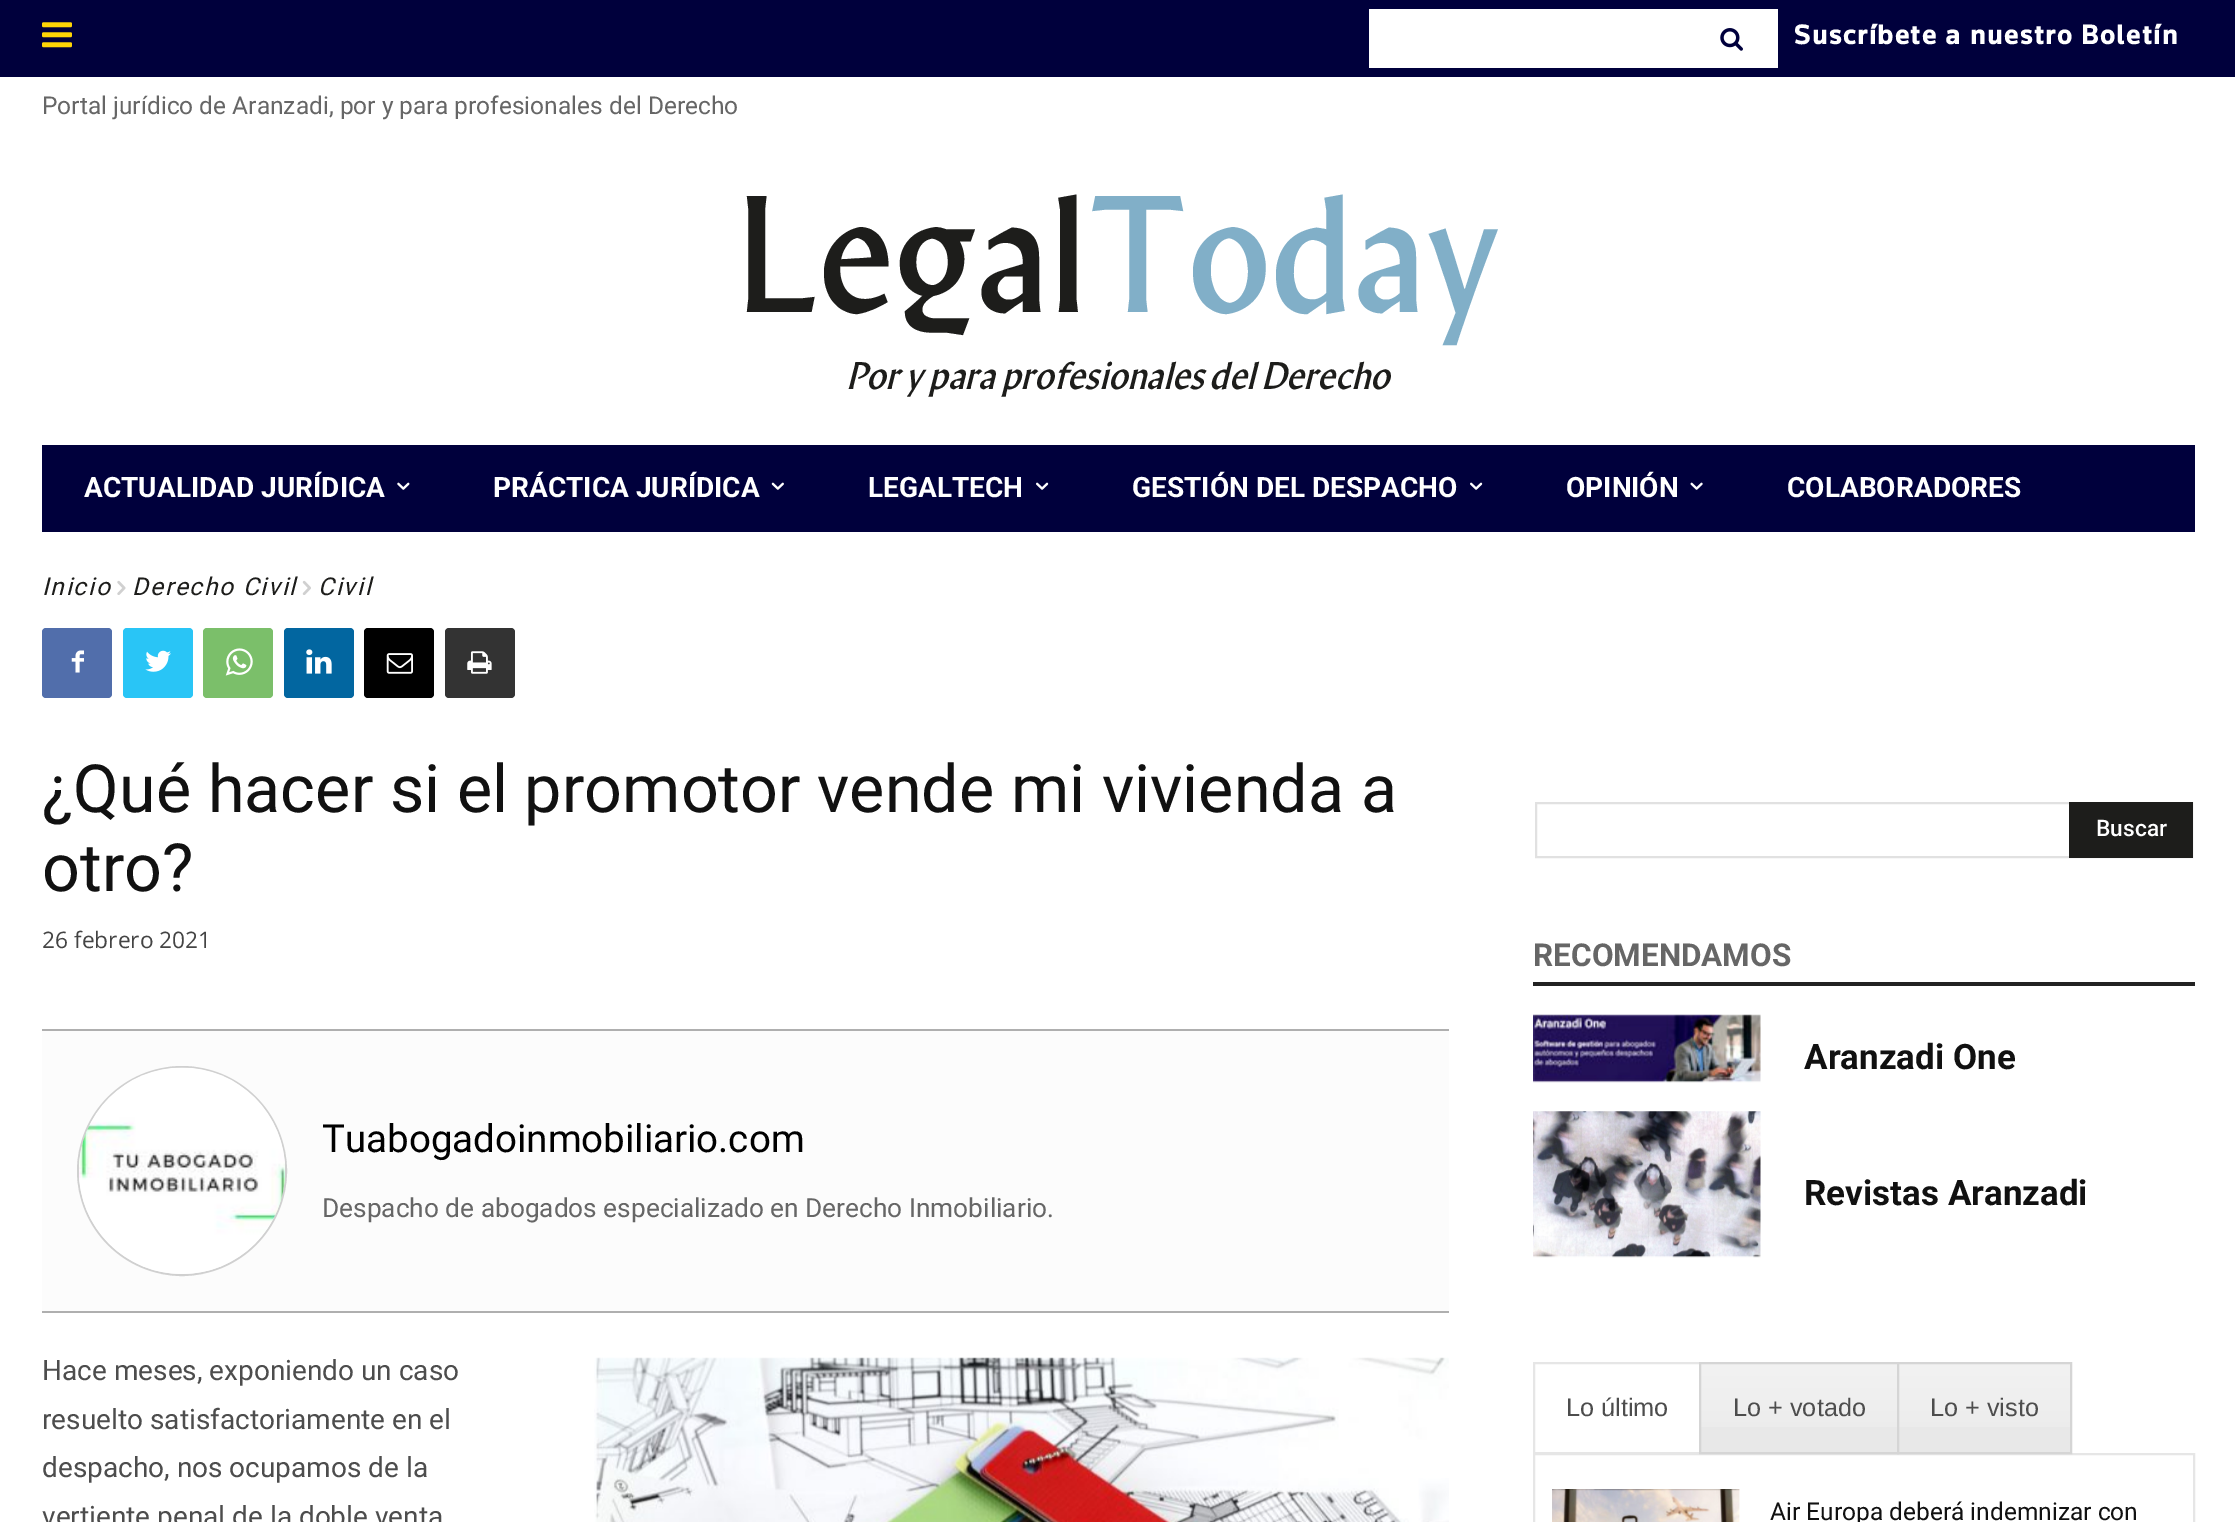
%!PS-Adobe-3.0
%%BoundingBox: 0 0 2235 1522
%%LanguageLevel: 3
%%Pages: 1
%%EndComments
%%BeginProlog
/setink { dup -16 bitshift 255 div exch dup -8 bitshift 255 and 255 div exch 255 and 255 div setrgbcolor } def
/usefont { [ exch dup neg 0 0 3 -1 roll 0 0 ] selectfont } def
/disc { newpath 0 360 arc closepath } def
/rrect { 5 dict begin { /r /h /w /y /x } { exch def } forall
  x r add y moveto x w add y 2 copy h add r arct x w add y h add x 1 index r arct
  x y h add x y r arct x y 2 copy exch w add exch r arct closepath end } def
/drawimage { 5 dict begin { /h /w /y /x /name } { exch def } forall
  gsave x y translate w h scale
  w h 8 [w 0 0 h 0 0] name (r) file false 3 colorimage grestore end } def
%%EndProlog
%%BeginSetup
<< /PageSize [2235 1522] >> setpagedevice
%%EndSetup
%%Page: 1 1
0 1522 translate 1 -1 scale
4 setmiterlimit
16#FFFFFF setink
0 0 2235 1522 rectfill
16#00003C setink
0 0 2235 77 rectfill
(img1.raw) 42 22 30 26 drawimage
16#FFFFFF setink
1369 9 409 59 rectfill
(img2.raw) 1720 28 23 23 drawimage
/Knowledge-Bold 28 usefont
1794 44 moveto 1.75 0 (Suscríbete a nuestro Boletín) ashow
/Roboto-Regular 24.5 usefont
16#666666 setink
42 114 moveto (Portal jurídico de Aranzadi, por y para profesionales del Derecho) show
/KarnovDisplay-Regular 166 usefont
16#1D1D1B setink
736 312 moveto (Legal) show
16#81AFC8 setink
1088 312 moveto (Today) show
/KarnovDisplay-Italic 38.5 usefont
16#1D1D1B setink
846 389 moveto (Por y para profesionales del Derecho) show
16#00003C setink
42 445 2153 87 rectfill
/Roboto-Bold 28 usefont
16#FFFFFF setink
84 497 moveto (ACTUALIDAD JURÍDICA) show
(img3.raw) 397 482 13 8 drawimage
493 497 moveto (PRÁCTICA JURÍDICA) show
(img4.raw) 771 482 13 8 drawimage
868 497 moveto (LEGALTECH) show
(img5.raw) 1036 482 13 8 drawimage
1132 497 moveto (GESTIÓN DEL DESPACHO) show
(img5.raw) 1470 482 13 8 drawimage
1566 497 moveto (OPINIÓN) show
(img6.raw) 1690 482 13 8 drawimage
1787 497 moveto (COLABORADORES) show
/Roboto-Italic 24.5 usefont
16#1D1D1B setink
42 595 moveto 1.75 0 (Inicio) ashow
(img7.raw) 117 580 9 15 drawimage
132 595 moveto 1.75 0 (Derecho Civil) ashow
(img8.raw) 302 580 9 15 drawimage
318 595 moveto 1.75 0 (Civil) ashow
16#516EAB setink
42 628 70 70 4 rrect fill
(img9.raw) 71 650 13 23 drawimage
16#29C5F6 setink
123 628 70 70 4 rrect fill
(img10.raw) 145 650 26 22 drawimage
16#7BBF6A setink
203 628 70 70 4 rrect fill
(img11.raw) 225 648 28 28 drawimage
16#0266A0 setink
284 628 70 70 4 rrect fill
(img12.raw) 306 649 26 25 drawimage
16#000000 setink
364 628 70 70 4 rrect fill
(img13.raw) 386 653 27 21 drawimage
16#333333 setink
445 628 70 70 4 rrect fill
(img14.raw) 467 651 25 23 drawimage
/Roboto-Regular 66.5 usefont
16#111111 setink
42 812 moveto (¿Qué hacer si el promotor vende mi vivienda a) show
42 891 moveto (otro?) show
/OpenSans-Regular 22.75 usefont
16#444444 setink
42 948 moveto (26 febrero 2021) show
[
    [42 1031 1407 280 16#FCFCFC]
    [42 1029 1407 2 16#AFAFAF]
    [42 1311 1407 2 16#AFAFAF]
] { aload pop setink rectfill } forall
16#D0D0D0 setink
2 setlinewidth
182 1171 104 disc stroke
(img15.raw) 79 1067 206 207 drawimage
/Roboto-Regular 38.5 usefont
16#000000 setink
322 1152 moveto (Tuabogadoinmobiliario.com) show
/Roboto-Regular 26.25 usefont
16#666666 setink
322 1217 moveto (Despacho de abogados especializado en Derecho Inmobiliario.) show
/Roboto-Regular 28 usefont
16#4D4D4D setink
[
    [(Hace meses, exponiendo un caso) 42 1380]
    [(resuelto satisfactoriamente en el) 42 1429]
    [(despacho, nos ocupamos de la) 42 1477]
    [(vertiente penal de la doble venta) 42 1526]
] { aload pop moveto show } forall
(img16.raw) 594 1357 855 165 drawimage
16#E1E1E1 setink
1536 803 656 54 rectstroke
16#1D1D1B setink
2069 802 124 56 rectfill
/Roboto-Medium 22.75 usefont
16#FFFFFF setink
2096 836 moveto (Buscar) show
16#222222 setink
1533 982 662 4 rectfill
/Roboto-Bold 31.5 usefont
16#666666 setink
1533 966 moveto (RECOMENDAMOS) show
(img17.raw) 1533 1014 228 69 drawimage
/Roboto-Bold 35 usefont
16#111111 setink
1804 1069 moveto (Aranzadi One) show
(img18.raw) 1533 1111 228 147 drawimage
1804 1205 moveto (Revistas Aranzadi) show
16#E6E6E6 setink
1534 1454 660 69 rectstroke
1534 1363 166 90 rectstroke
/LiberationSans-Regular 25.25 usefont
16#4D4D4D setink
1566 1416 moveto (Lo último) show
16#E8E8E8 setink
1701 1364 196 88 rectfill
(img19.raw) 1701 1364 196 63 drawimage
16#D5D5D5 setink
1700 1363 198 90 rectstroke
16#4D4D4D setink
1733 1416 moveto (Lo + votado) show
16#E8E8E8 setink
1899 1364 171 88 rectfill
(img20.raw) 1899 1364 171 63 drawimage
16#D5D5D5 setink
1898 1363 173 90 rectstroke
16#4D4D4D setink
1930 1416 moveto (Lo + visto) show
(img21.raw) 1552 1489 188 33 drawimage
/Roboto-Regular 24.5 usefont
16#111111 setink
1770 1520 moveto (Air Europa deberá indemnizar con) show
showpage
%%EOF
